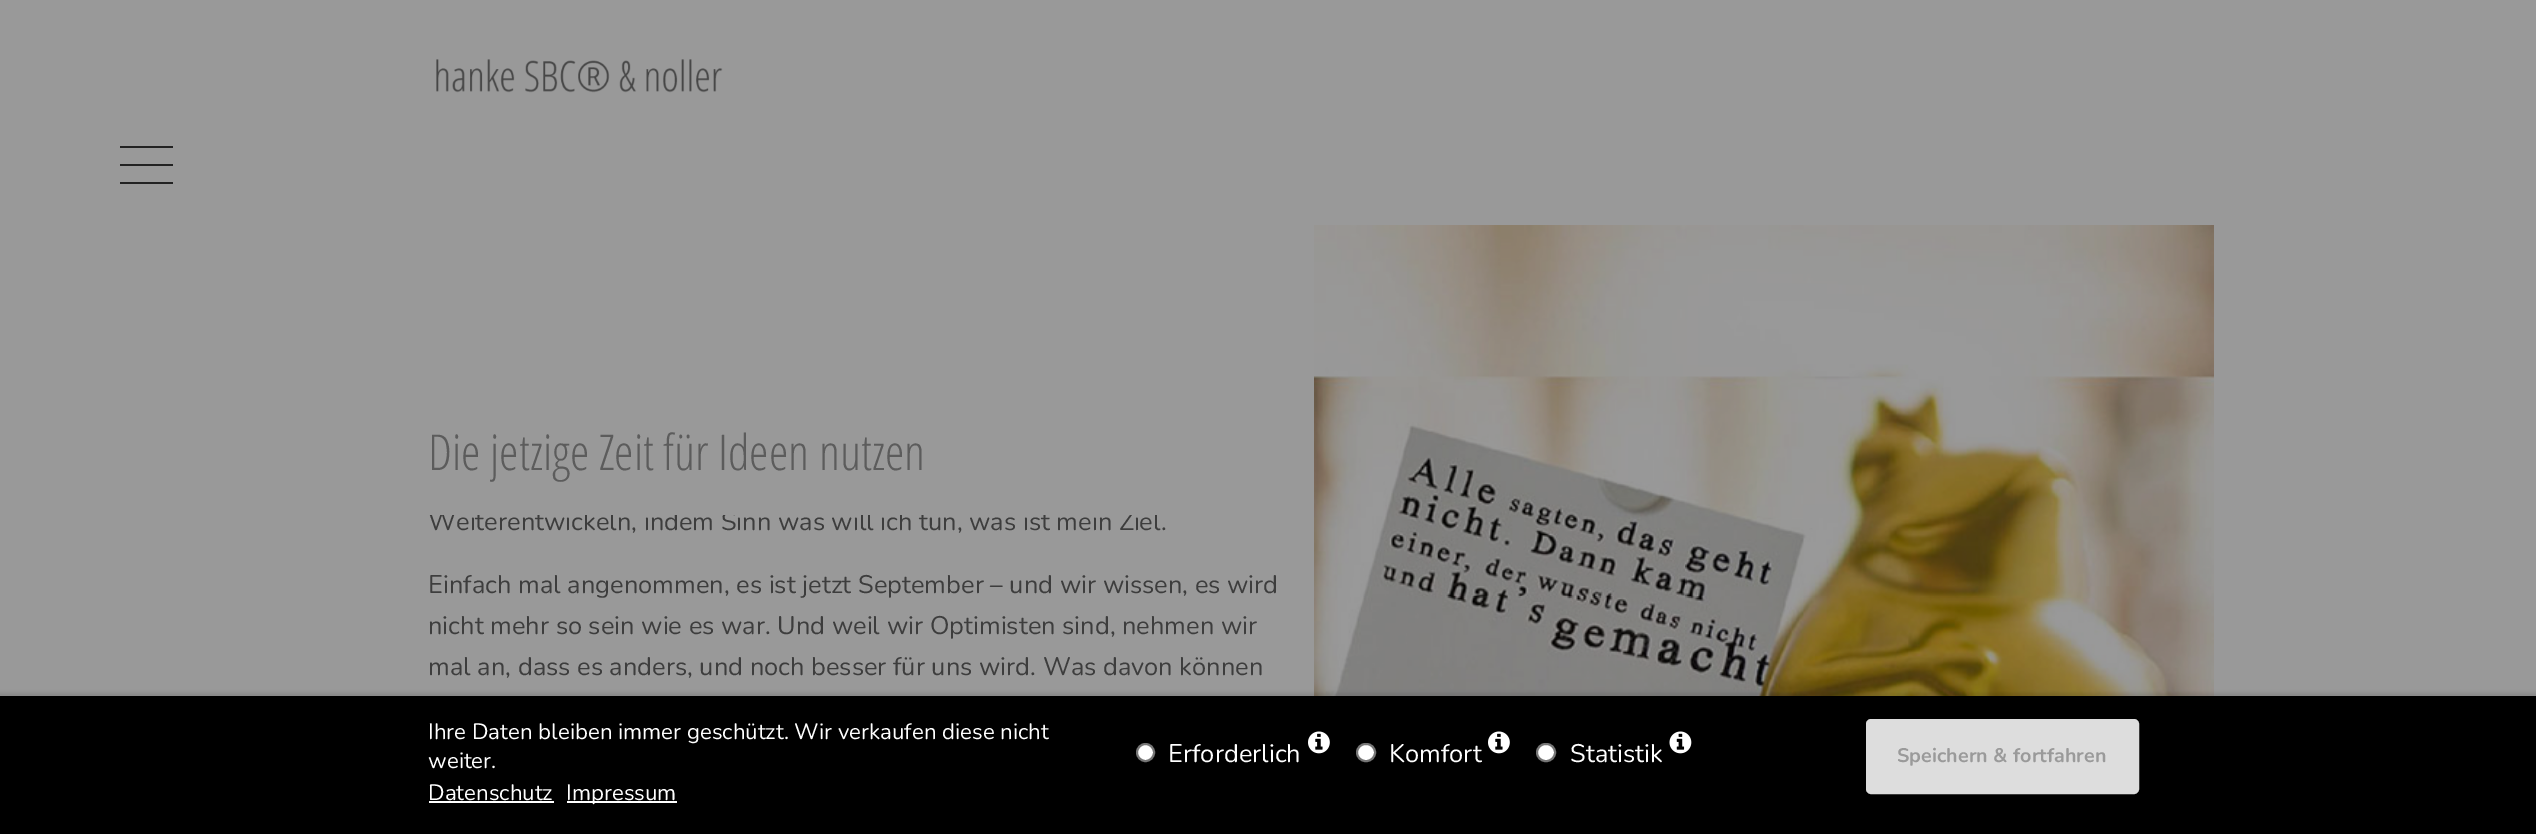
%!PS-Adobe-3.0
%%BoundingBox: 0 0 2536 834
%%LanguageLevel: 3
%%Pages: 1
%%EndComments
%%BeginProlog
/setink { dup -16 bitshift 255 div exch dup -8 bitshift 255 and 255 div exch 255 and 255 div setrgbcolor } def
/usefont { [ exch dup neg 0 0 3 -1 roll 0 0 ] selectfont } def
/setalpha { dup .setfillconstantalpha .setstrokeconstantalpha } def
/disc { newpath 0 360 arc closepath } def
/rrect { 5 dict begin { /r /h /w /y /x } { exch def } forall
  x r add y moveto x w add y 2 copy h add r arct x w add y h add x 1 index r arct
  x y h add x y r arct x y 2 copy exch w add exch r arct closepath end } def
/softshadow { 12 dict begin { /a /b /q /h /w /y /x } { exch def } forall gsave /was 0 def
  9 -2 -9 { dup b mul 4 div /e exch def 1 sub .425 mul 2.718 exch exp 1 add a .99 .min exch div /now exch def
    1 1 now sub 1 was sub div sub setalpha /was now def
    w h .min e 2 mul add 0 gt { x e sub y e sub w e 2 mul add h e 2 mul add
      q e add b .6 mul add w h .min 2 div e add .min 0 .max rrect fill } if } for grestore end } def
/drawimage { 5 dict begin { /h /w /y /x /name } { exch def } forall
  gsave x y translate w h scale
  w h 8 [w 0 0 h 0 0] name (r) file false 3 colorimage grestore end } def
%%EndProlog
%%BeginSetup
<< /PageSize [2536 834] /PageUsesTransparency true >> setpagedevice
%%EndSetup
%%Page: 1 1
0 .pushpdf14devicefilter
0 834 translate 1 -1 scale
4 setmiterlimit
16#999999 setink
0 0 2536 834 rectfill
(img1.raw) 436 59 287 34 drawimage
[
    [120 164 53 2 16#222222]
    [120 146 53 2 16#222222]
    [120 182 53 2 16#222222]
] { aload pop setink rectfill } forall
/Nunito-ExtraLight 25.45 usefont
16#3D3D3D setink
428 530 moveto (Weiterentwickeln, indem Sinn was will ich tun, was ist mein Ziel.) show
16#999999 setink
429 511 729 4 rectfill
/OpenSans-Light 49.5 usefont
16#5C5C5C setink
428 470 moveto (Die jetzige Zeit für Ideen nutzen) show
/Nunito-ExtraLight 25.45 usefont
16#3D3D3D setink
[
    [(Einfach mal angenommen, es ist jetzt September – und wir wissen, es wird) 428 593]
    [(nicht mehr so sein wie es war. Und weil wir Optimisten sind, nehmen wir) 428 634]
    [(mal an, dass es anders, und noch besser für uns wird. Was davon können) 428 675]
] { aload pop moveto show } forall
(img2.raw) 1314 225 900 471 drawimage
16#000000 setink
-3 693 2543 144 0 1.5 0.1 softshadow
0 696 2536 138 rectfill
/Nunito-ExtraLight 22.25 usefont
16#FFFFFF setink
[
    [(Ihre Daten bleiben immer geschützt. Wir verkaufen diese nicht) 428 739]
    [(weiter.) 428 768]
    [(Datenschutz) 428 800]
] { aload pop moveto show } forall
429 801 125 2 rectfill
567 801 110 2 rectfill
566 800 moveto (Impressum) show
1145.5 752.5 8.5 disc gsave fill grestore
16#767676 setink
2 setlinewidth
stroke
/Nunito-ExtraLight 25.45 usefont
16#FFFFFF setink
1168 762 moveto (Erforderlich) show
(img3.raw) 1308 731 22 23 drawimage
1357 744 18 17 8.5 rrect gsave fill grestore
16#767676 setink
stroke
16#FFFFFF setink
1389 762 moveto (Komfort) show
(img3.raw) 1488 731 22 23 drawimage
1537 744 18 17 8.5 rrect gsave fill grestore
16#767676 setink
stroke
16#FFFFFF setink
1570 762 moveto (Statistik) show
(img4.raw) 1669 731 23 23 drawimage
16#DDDDDD setink
1867 720 271 73 4 rrect gsave fill grestore
stroke
/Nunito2-ExtraLight 19.75 usefont
16#9A9A9A setink
1897 762 moveto (Speichern & fortfahren) show
.poppdf14devicefilter showpage
%%EOF
